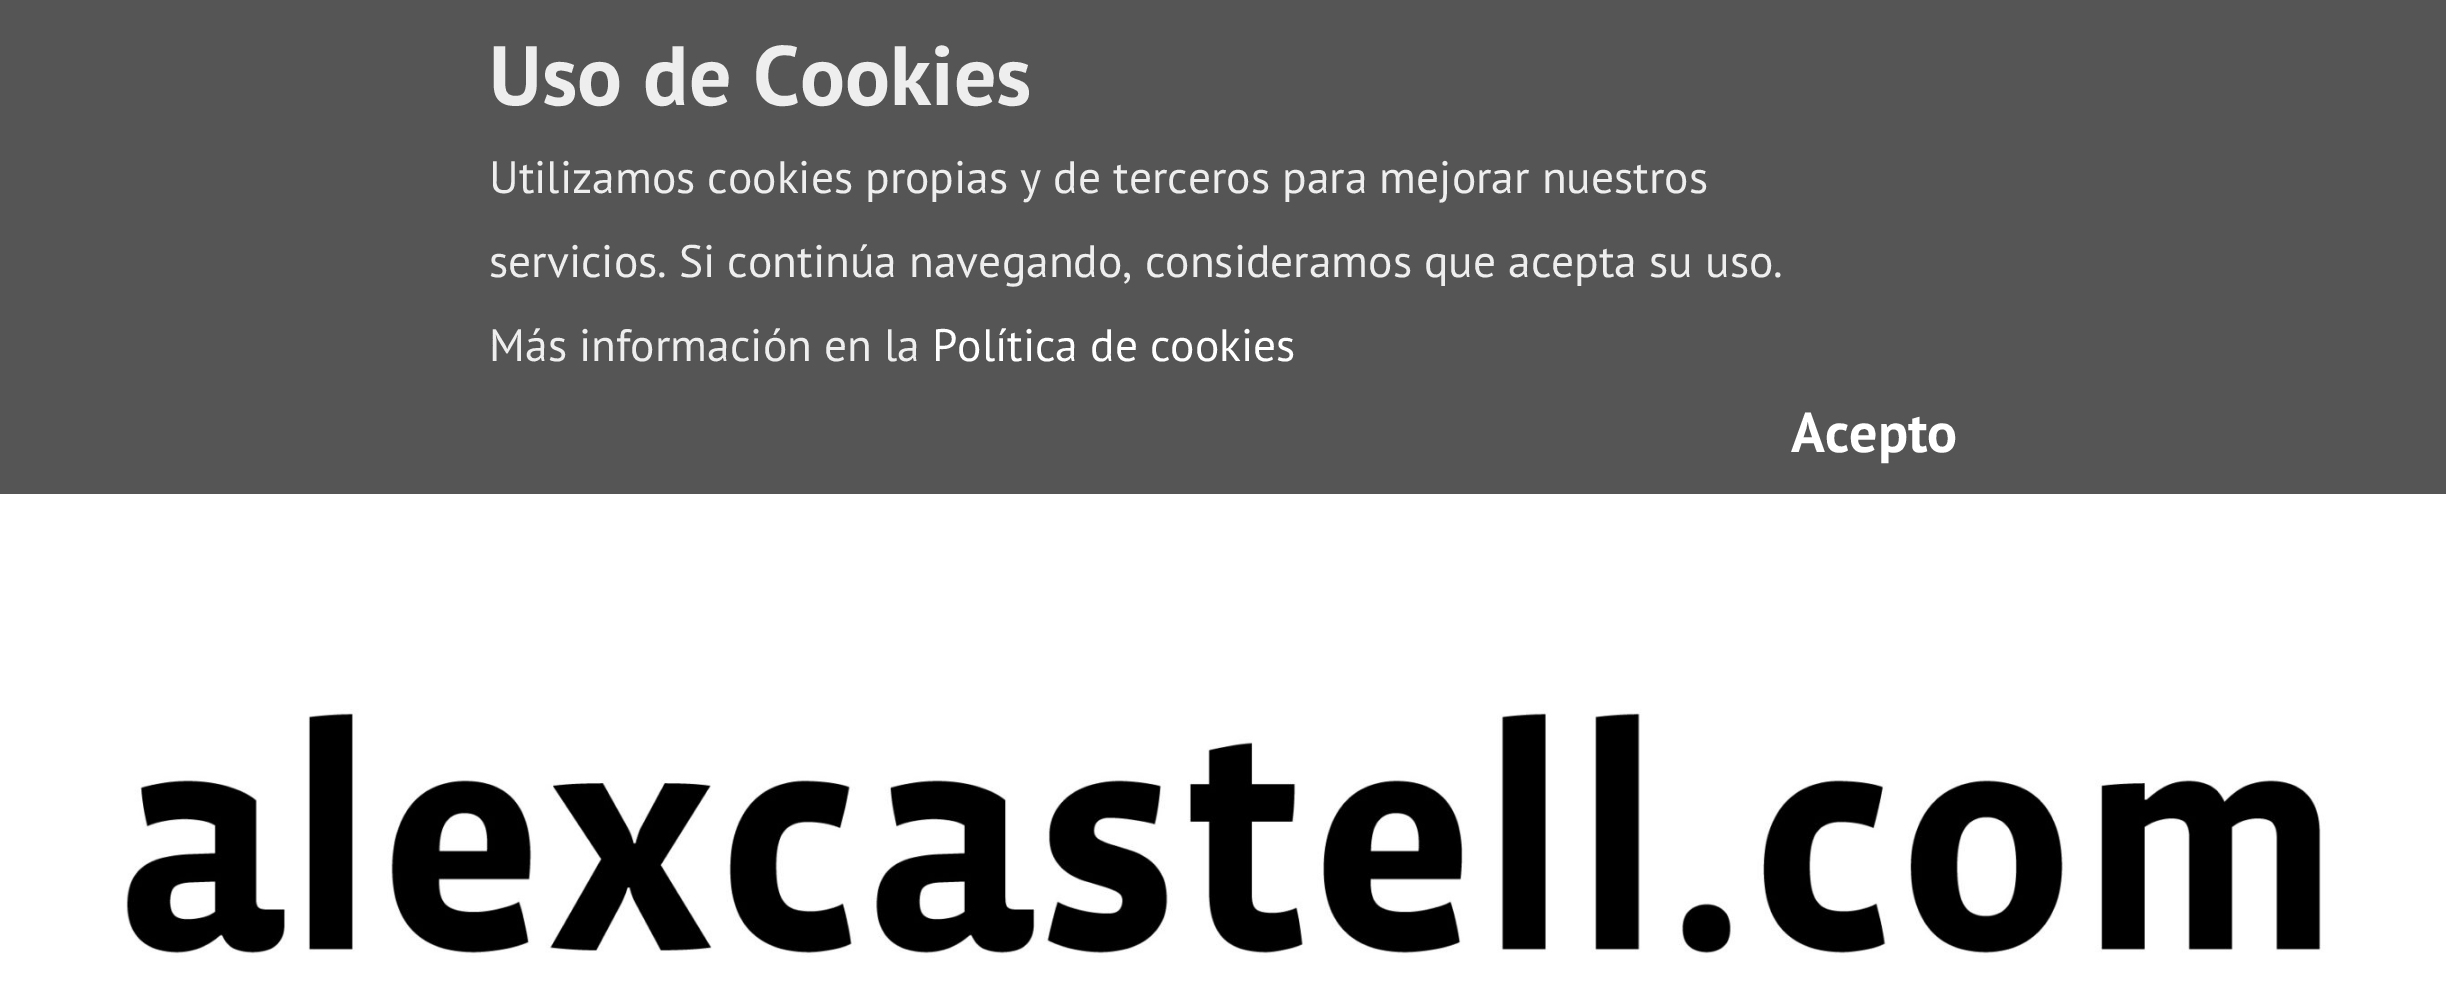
%!PS-Adobe-3.0
%%BoundingBox: 0 0 2446 1007
%%LanguageLevel: 3
%%Pages: 1
%%EndComments
%%BeginProlog
/setink { dup -16 bitshift 255 div exch dup -8 bitshift 255 and 255 div exch 255 and 255 div setrgbcolor } def
/usefont { [ exch dup neg 0 0 3 -1 roll 0 0 ] selectfont } def
/drawimage { 5 dict begin { /h /w /y /x /name } { exch def } forall
  gsave x y translate w h scale
  w h 8 [w 0 0 h 0 0] name (r) file false 3 colorimage grestore end } def
%%EndProlog
%%BeginSetup
<< /PageSize [2446 1007] >> setpagedevice
%%EndSetup
%%Page: 1 1
0 1007 translate 1 -1 scale
4 setmiterlimit
16#555555 setink
0 0 2446 1007 rectfill
/PTSans-Bold 84 usefont
16#EEEEEE setink
489 105 moveto (Uso de Cookies) show
/PTSans-Regular 45.5 usefont
[
    [(Utilizamos cookies propias y de terceros para mejorar nuestros) 489 193]
    [(servicios. Si continúa navegando, consideramos que acepta su uso.) 489 277]
    [(Más información en la) 489 361]
] { aload pop moveto show } forall
16#FFFFFF setink
932 361 moveto (Política de cookies) show
/PTSans-Bold 56 usefont
1791 452 moveto (Acepto) show
0 494 2446 513 rectfill
(img1.raw) 126 709 2200 249 drawimage
showpage
%%EOF
